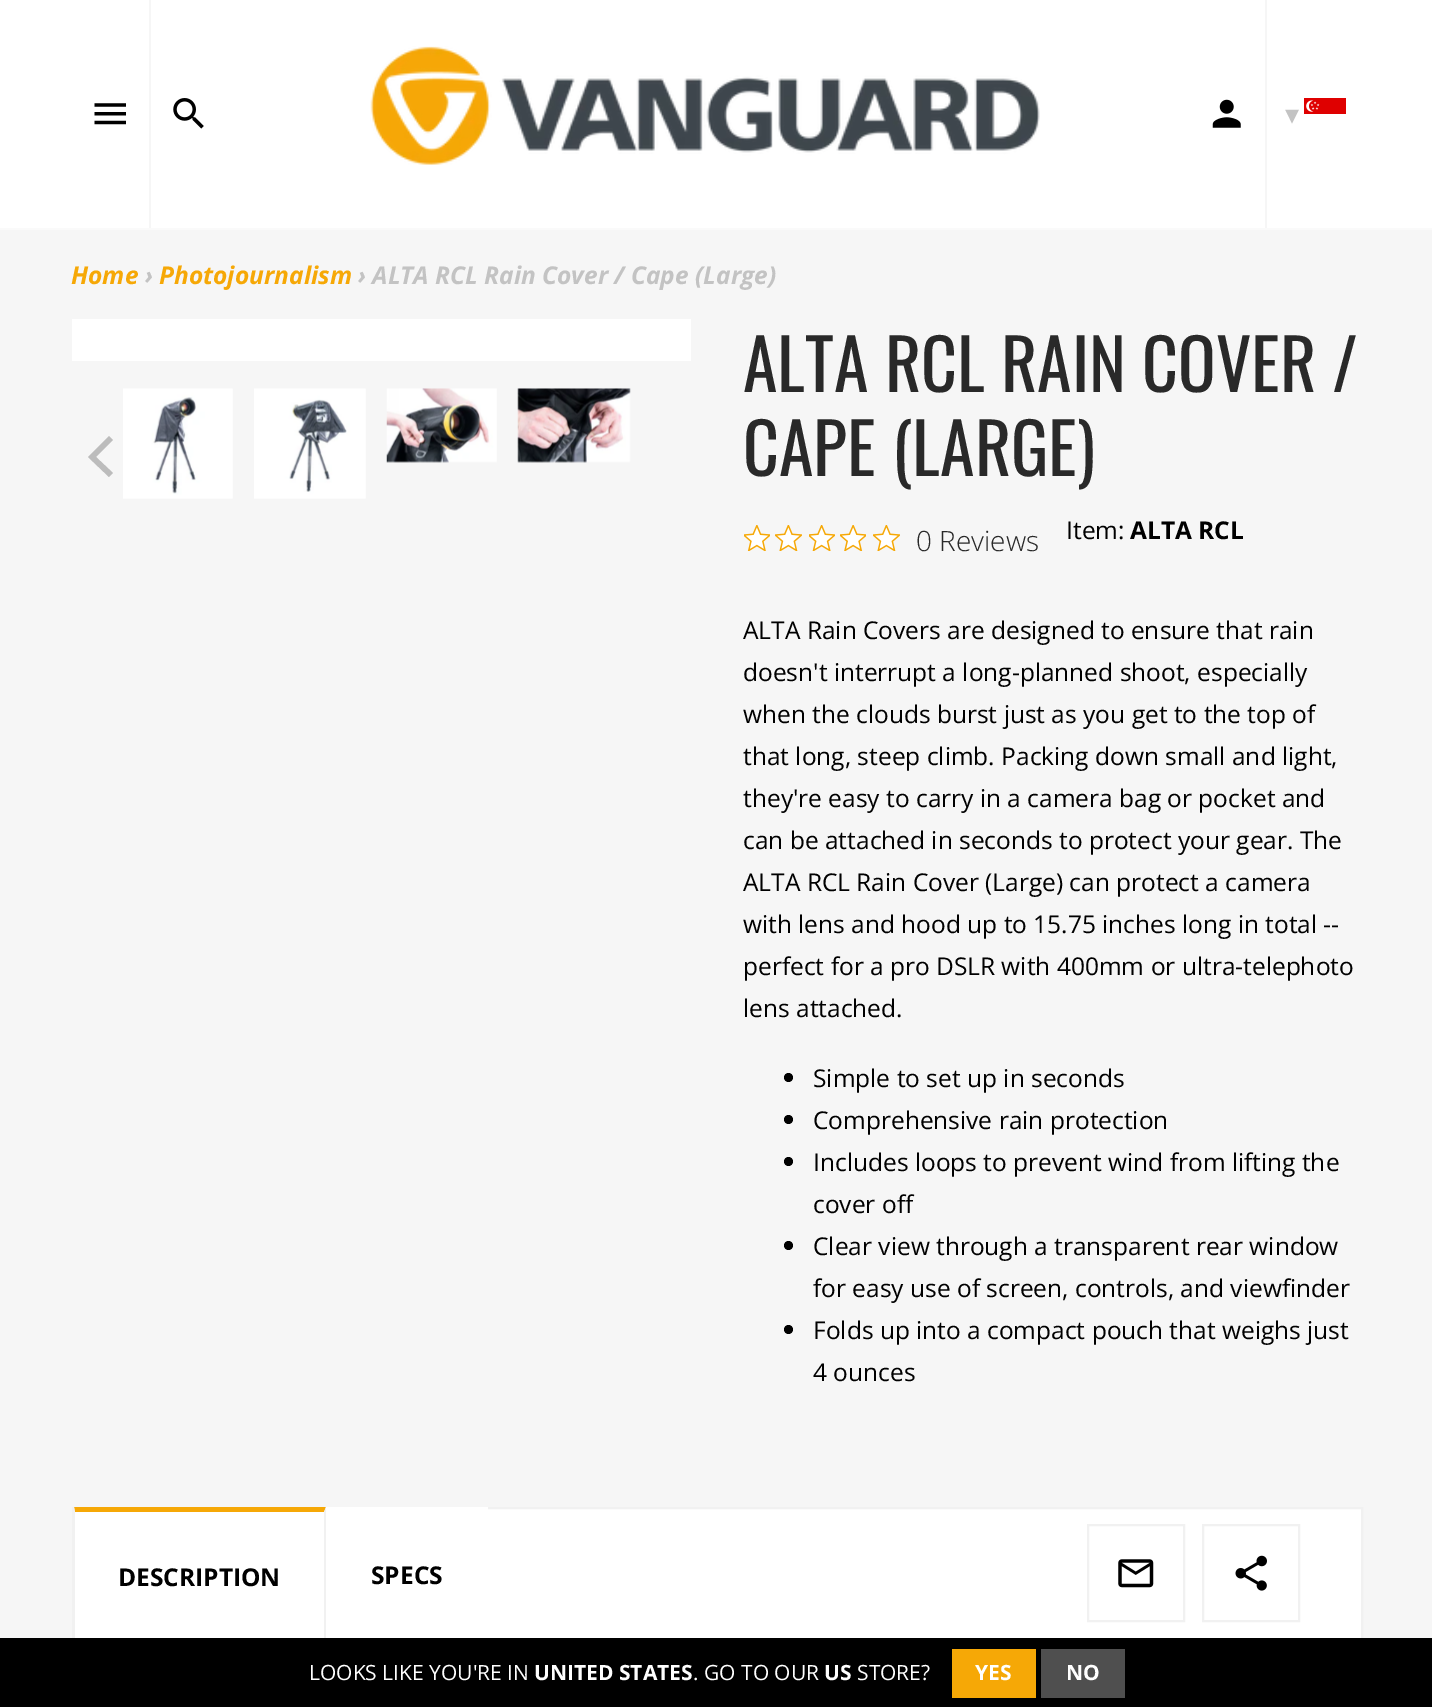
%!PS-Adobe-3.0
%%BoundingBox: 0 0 1432 1707
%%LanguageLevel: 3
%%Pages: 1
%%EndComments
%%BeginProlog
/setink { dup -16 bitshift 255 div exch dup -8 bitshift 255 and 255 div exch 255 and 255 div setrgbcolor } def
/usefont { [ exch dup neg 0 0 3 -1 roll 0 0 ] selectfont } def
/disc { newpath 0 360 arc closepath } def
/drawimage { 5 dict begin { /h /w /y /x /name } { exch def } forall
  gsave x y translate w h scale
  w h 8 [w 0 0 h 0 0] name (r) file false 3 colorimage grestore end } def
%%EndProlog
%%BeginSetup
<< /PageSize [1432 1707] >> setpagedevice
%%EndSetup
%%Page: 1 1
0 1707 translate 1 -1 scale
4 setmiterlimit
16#F6F6F6 setink
0 0 1432 1707 rectfill
16#FFFFFF setink
0 0 1432 228 rectfill
16#FAFAFA setink
0 228 1432 2 rectfill
(img1.raw) 94 103 32 22 drawimage
16#F6F6F6 setink
149 0 2 228 rectfill
(img2.raw) 173 98 31 31 drawimage
(img3.raw) 370 46 670 119 drawimage
(img4.raw) 1212 99 29 29 drawimage
1265 0 2 228 rectfill
(img5.raw) 1304 98 42 16 drawimage
/DejaVuSans-Regular 28 usefont
16#C3C3C3 setink
1285 124 moveto (▾) show
/OpenSans-BoldItalic 24.5 usefont
16#F6A806 setink
71 284 moveto (Home) show
16#C3C3C3 setink
145 284 moveto (›) show
16#F6A806 setink
159 284 moveto (Photojournalism) show
16#C3C3C3 setink
358 284 moveto (› ALTA RCL Rain Cover / Cape \(Large\)) show
16#FFFFFF setink
72 319 619 42 rectfill
16#BCBCBC setink
88 457 moveto 109 477 lineto 113 473 lineto 96 457 lineto 113 440 lineto 109 436 lineto closepath fill
(img6.raw) 123 388 110 111 drawimage
(img7.raw) 254 388 112 111 drawimage
(img8.raw) 386 388 111 75 drawimage
(img9.raw) 517 388 114 75 drawimage
/Oswald-Regular 70 usefont
16#292929 setink
743 392 moveto (ALTA RCL RAIN COVER /) show
743 476 moveto (CAPE \(LARGE\)) show
(img10.raw) 744 525 26 26 drawimage
(img11.raw) 775 525 27 26 drawimage
(img12.raw) 809 525 26 26 drawimage
(img13.raw) 840 525 26 26 drawimage
(img11.raw) 873 525 27 26 drawimage
/OpenSans-Light 28 usefont
916 551 moveto (0 Reviews) show
/OpenSans-Regular 24.5 usefont
16#000000 setink
1066 539 moveto (Item:) show
/OpenSans-Bold 24.5 usefont
1130 539 moveto (ALTA RCL) show
/OpenSans-Regular 24.5 usefont
[
    [(ALTA Rain Covers are designed to ensure that rain) 743 639]
    [(doesn't interrupt a long-planned shoot, especially) 743 681]
    [(when the clouds burst just as you get to the top of) 743 723]
    [(that long, steep climb. Packing down small and light,) 743 765]
    [(they're easy to carry in a camera bag or pocket and) 743 807]
    [(can be attached in seconds to protect your gear. The) 743 849]
    [(ALTA RCL Rain Cover \(Large\) can protect a camera) 743 891]
    [(with lens and hood up to 15.75 inches long in total --) 743 933]
    [(perfect for a pro DSLR with 400mm or ultra-telephoto) 743 975]
    [(lens attached.) 743 1017]
] { aload pop moveto show } forall
788.5 1077.5 4.5 disc fill
813 1087 moveto (Simple to set up in seconds) show
788.5 1119.5 4.5 disc fill
813 1129 moveto (Comprehensive rain protection) show
788.5 1161.5 4.5 disc fill
813 1171 moveto (Includes loops to prevent wind from lifting the) show
813 1213 moveto (cover off) show
788.5 1245.5 4.5 disc fill
813 1255 moveto (Clear view through a transparent rear window) show
813 1297 moveto (for easy use of screen, controls, and viewfinder) show
788.5 1329.5 4.5 disc fill
813 1339 moveto (Folds up into a compact pouch that weighs just) show
813 1381 moveto (4 ounces) show
16#FFFFFF setink
488 1509 873 129 rectfill
16#F1F1F1 setink
2 setlinewidth
73 1508 1289 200 rectstroke
16#FFFFFF setink
74 1507 414 131 rectfill
16#F6A806 setink
74 1507 moveto 326 1507 lineto 324 1512 lineto 75 1512 lineto closepath fill
16#F1F1F1 setink
326 1507 moveto 326 1642 lineto 324 1642 lineto 324 1512 lineto closepath fill
74 1642 moveto 74 1507 lineto 75 1512 lineto 75 1642 lineto closepath fill
/OpenSans-Bold 24.5 usefont
16#000000 setink
118 1586 moveto (DESCRIPTION) show
371 1584 moveto (SPECS) show
16#F1F1F1 setink
1088 1525 96 96 rectstroke
(img14.raw) 1118 1559 36 29 drawimage
1203 1525 96 96 rectstroke
(img15.raw) 1235 1555 32 36 drawimage
16#000000 setink
0 1638 1432 69 rectfill
/OpenSans-Regular 21 usefont
16#FFFFFF setink
309 1680 moveto (LOOKS LIKE YOU'RE IN) show
/OpenSans-Bold 21 usefont
534 1680 moveto (UNITED STATES) show
/OpenSans-Regular 21 usefont
693 1680 moveto (. GO TO OUR) show
/OpenSans-Bold 21 usefont
824 1680 moveto (US) show
/OpenSans-Regular 21 usefont
857 1680 moveto (STORE?) show
16#F6A806 setink
952 1649 84 49 rectfill
/OpenSans-Bold 21 usefont
16#FFFFFF setink
975 1680 moveto (YES) show
16#4F4F4F setink
1041 1649 84 49 rectfill
16#FFFFFF setink
1066 1680 moveto (NO) show
showpage
%%EOF
